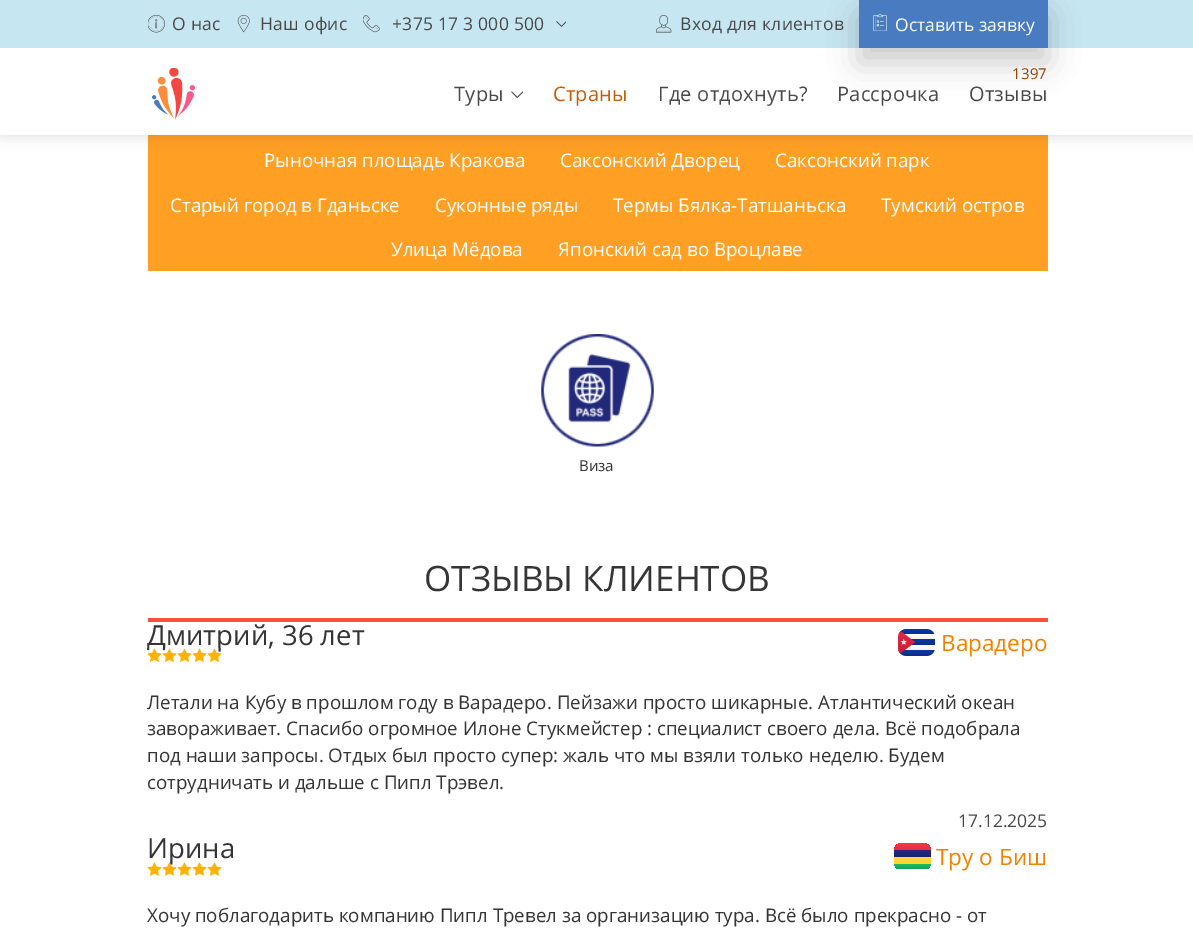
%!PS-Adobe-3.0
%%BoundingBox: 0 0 1193 943
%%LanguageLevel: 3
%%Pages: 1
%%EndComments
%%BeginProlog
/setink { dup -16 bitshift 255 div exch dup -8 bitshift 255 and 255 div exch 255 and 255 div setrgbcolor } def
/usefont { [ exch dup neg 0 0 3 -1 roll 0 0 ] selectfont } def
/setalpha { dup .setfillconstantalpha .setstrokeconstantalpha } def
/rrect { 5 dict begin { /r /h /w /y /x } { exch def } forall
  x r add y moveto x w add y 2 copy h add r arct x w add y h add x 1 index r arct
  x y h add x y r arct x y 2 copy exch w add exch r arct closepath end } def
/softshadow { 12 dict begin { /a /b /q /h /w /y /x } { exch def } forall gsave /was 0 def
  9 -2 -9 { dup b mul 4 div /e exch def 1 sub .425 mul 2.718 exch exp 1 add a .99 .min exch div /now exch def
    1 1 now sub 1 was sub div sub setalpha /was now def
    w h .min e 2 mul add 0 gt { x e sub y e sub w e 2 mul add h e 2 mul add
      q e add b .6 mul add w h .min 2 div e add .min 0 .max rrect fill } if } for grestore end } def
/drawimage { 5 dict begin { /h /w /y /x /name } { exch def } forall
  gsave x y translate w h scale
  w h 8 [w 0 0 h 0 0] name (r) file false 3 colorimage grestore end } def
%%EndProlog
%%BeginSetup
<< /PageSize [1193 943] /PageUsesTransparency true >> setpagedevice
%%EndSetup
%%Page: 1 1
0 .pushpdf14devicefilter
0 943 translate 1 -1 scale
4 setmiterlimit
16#FFFFFF setink
0 0 1193 943 rectfill
16#FFA024 setink
148 135 900 136 rectfill
16#000000 setink
0 3 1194 135 0 6 0.1 softshadow
16#FFFFFF setink
0 48 1193 87 rectfill
16#C6E6F1 setink
0 0 1193 48 rectfill
(img1.raw) 148 15 17 18 drawimage
/OpenSans-Regular 17.5 usefont
16#494949 setink
172 30 moveto 0.25 0 (О нас) ashow
(img2.raw) 237 15 13 18 drawimage
260 30 moveto 0.25 0 (Наш офис) ashow
(img3.raw) 363 15 17 18 drawimage
392 30 moveto 0.25 0 (+375 17 3 000 500) ashow
(img4.raw) 556 21 10 6 drawimage
(img5.raw) 656 15 16 18 drawimage
680 30 moveto 0.25 0 (Вход для клиентов) ashow
16#000000 setink
859 15 189 48 0 15 0.2 softshadow
16#487BBF setink
859 0 189 48 rectfill
(img6.raw) 873 14 14 17 drawimage
16#FFFFFF setink
895 31 moveto (Оставить заявку) show
(img7.raw) 152 68 43 52 drawimage
/OpenSans-Regular 20 usefont
16#494949 setink
454 101 moveto 0.25 0 (Туры) ashow
(img8.raw) 511 91 12 7 drawimage
16#C95B06 setink
553 101 moveto 0.25 0 (Страны) ashow
16#494949 setink
658 101 moveto 0.25 0 (Где отдохнуть?) ashow
837 101 moveto 0.25 0 (Рассрочка) ashow
/OpenSans-Regular 15 usefont
16#904303 setink
1012 79 moveto 0.25 0 (1397) ashow
/OpenSans-Regular 20 usefont
16#494949 setink
969 101 moveto 0.25 0 (Отзывы) ashow
/OpenSans-Regular 18.75 usefont
16#FFFFFF setink
[
    [(Рыночная площадь Кракова) 264 167]
    [(Саксонский Дворец) 560 167]
    [(Саксонский парк) 775 167]
    [(Старый город в Гданьске) 170 212]
    [(Суконные ряды) 435 212]
    [(Термы Бялка-Татшаньска) 613 212]
    [(Тумский остров) 881 212]
    [(Улица Мёдова) 391 256]
    [(Японский сад во Вроцлаве) 558 256]
] { aload pop moveto show } forall
(img9.raw) 541 334 113 113 drawimage
/OpenSans-Regular 15 usefont
16#353535 setink
579 471 moveto (Виза) show
16#FA503A setink
148 618 900 4 rectfill
/OpenSans-Regular 35 usefont
16#353535 setink
424 591 moveto (ОТЗЫВЫ КЛИЕНТОВ) show
/OpenSans-Regular 27.5 usefont
147 645 moveto (Дмитрий, 36 лет) show
(img10.raw) 147 648 15 14 drawimage
(img11.raw) 162 648 15 14 drawimage
(img12.raw) 177 648 15 14 drawimage
(img12.raw) 192 648 15 14 drawimage
(img13.raw) 207 648 15 14 drawimage
(img14.raw) 898 629 37 27 drawimage
/OpenSans-Regular 22.5 usefont
16#F18200 setink
941 651 moveto (Варадеро) show
/OpenSans-Regular 18.75 usefont
16#353535 setink
[
    [(Летали на Кубу в прошлом году в Варадеро. Пейзажи просто шикарные. Атлантический океан) 147 709]
    [(завораживает. Спасибо огромное Илоне Стукмейстер : специалист своего дела. Всё подобрала) 147 735]
    [(под наши запросы. Отдых был просто супер: жаль что мы взяли только неделю. Будем) 147 762]
    [(сотрудничать и дальше с Пипл Трэвел.) 147 789]
] { aload pop moveto show } forall
/OpenSans-Regular 17.5 usefont
16#494949 setink
958 827 moveto (17.12.2025) show
/OpenSans-Regular 27.5 usefont
16#353535 setink
147 858 moveto (Ирина) show
(img15.raw) 147 862 15 14 drawimage
(img16.raw) 162 862 15 14 drawimage
(img15.raw) 177 862 15 14 drawimage
(img15.raw) 192 862 15 14 drawimage
(img15.raw) 207 862 15 14 drawimage
gsave
894 843 37 27 8 rrect clip newpath
gsave 894 864 moveto 931 864 lineto 931 869 lineto 894 869 lineto closepath clip newpath
<< /ShadingType 2 /ColorSpace /DeviceRGB /Coords [913 864 913 869] /Extend [true true] /Function << /FunctionType 2 /Domain [0 1] /C0 [0.114 0.733 0.388] /C1 [0.09 0.643 0.333] /N 1 >> >> shfill grestore
grestore
gsave 894 850 moveto 931 850 lineto 931 857 lineto 894 857 lineto closepath clip newpath
<< /ShadingType 2 /ColorSpace /DeviceRGB /Coords [913 850 913 857] /Extend [true true] /Function << /FunctionType 2 /Domain [0 1] /C0 [0.133 0.169 0.51] /C1 [0.106 0.137 0.424] /N 1 >> >> shfill grestore
gsave 894 857 moveto 931 857 lineto 931 864 lineto 894 864 lineto closepath clip newpath
<< /ShadingType 2 /ColorSpace /DeviceRGB /Coords [913 857 913 864] /Extend [true true] /Function << /FunctionType 2 /Domain [0 1] /C0 [1 0.843 0.255] /C1 [1 0.831 0.188] /N 1 >> >> shfill grestore
gsave
894 843 37 27 8 rrect clip newpath
gsave 894 843 moveto 931 843 lineto 931 850 lineto 894 850 lineto closepath clip newpath
<< /ShadingType 2 /ColorSpace /DeviceRGB /Coords [913 843 913 850] /Extend [true true] /Function << /FunctionType 2 /Domain [0 1] /C0 [0.957 0.216 0.29] /C1 [0.914 0.173 0.247] /N 1 >> >> shfill grestore
grestore
/OpenSans-Regular 22.5 usefont
16#F18200 setink
936 865 moveto (Тру о Биш) show
/OpenSans-Regular 18.75 usefont
16#353535 setink
147 922 moveto (Хочу поблагодарить компанию Пипл Тревел за организацию тура. Всё было прекрасно - от) show
.poppdf14devicefilter showpage
%%EOF
